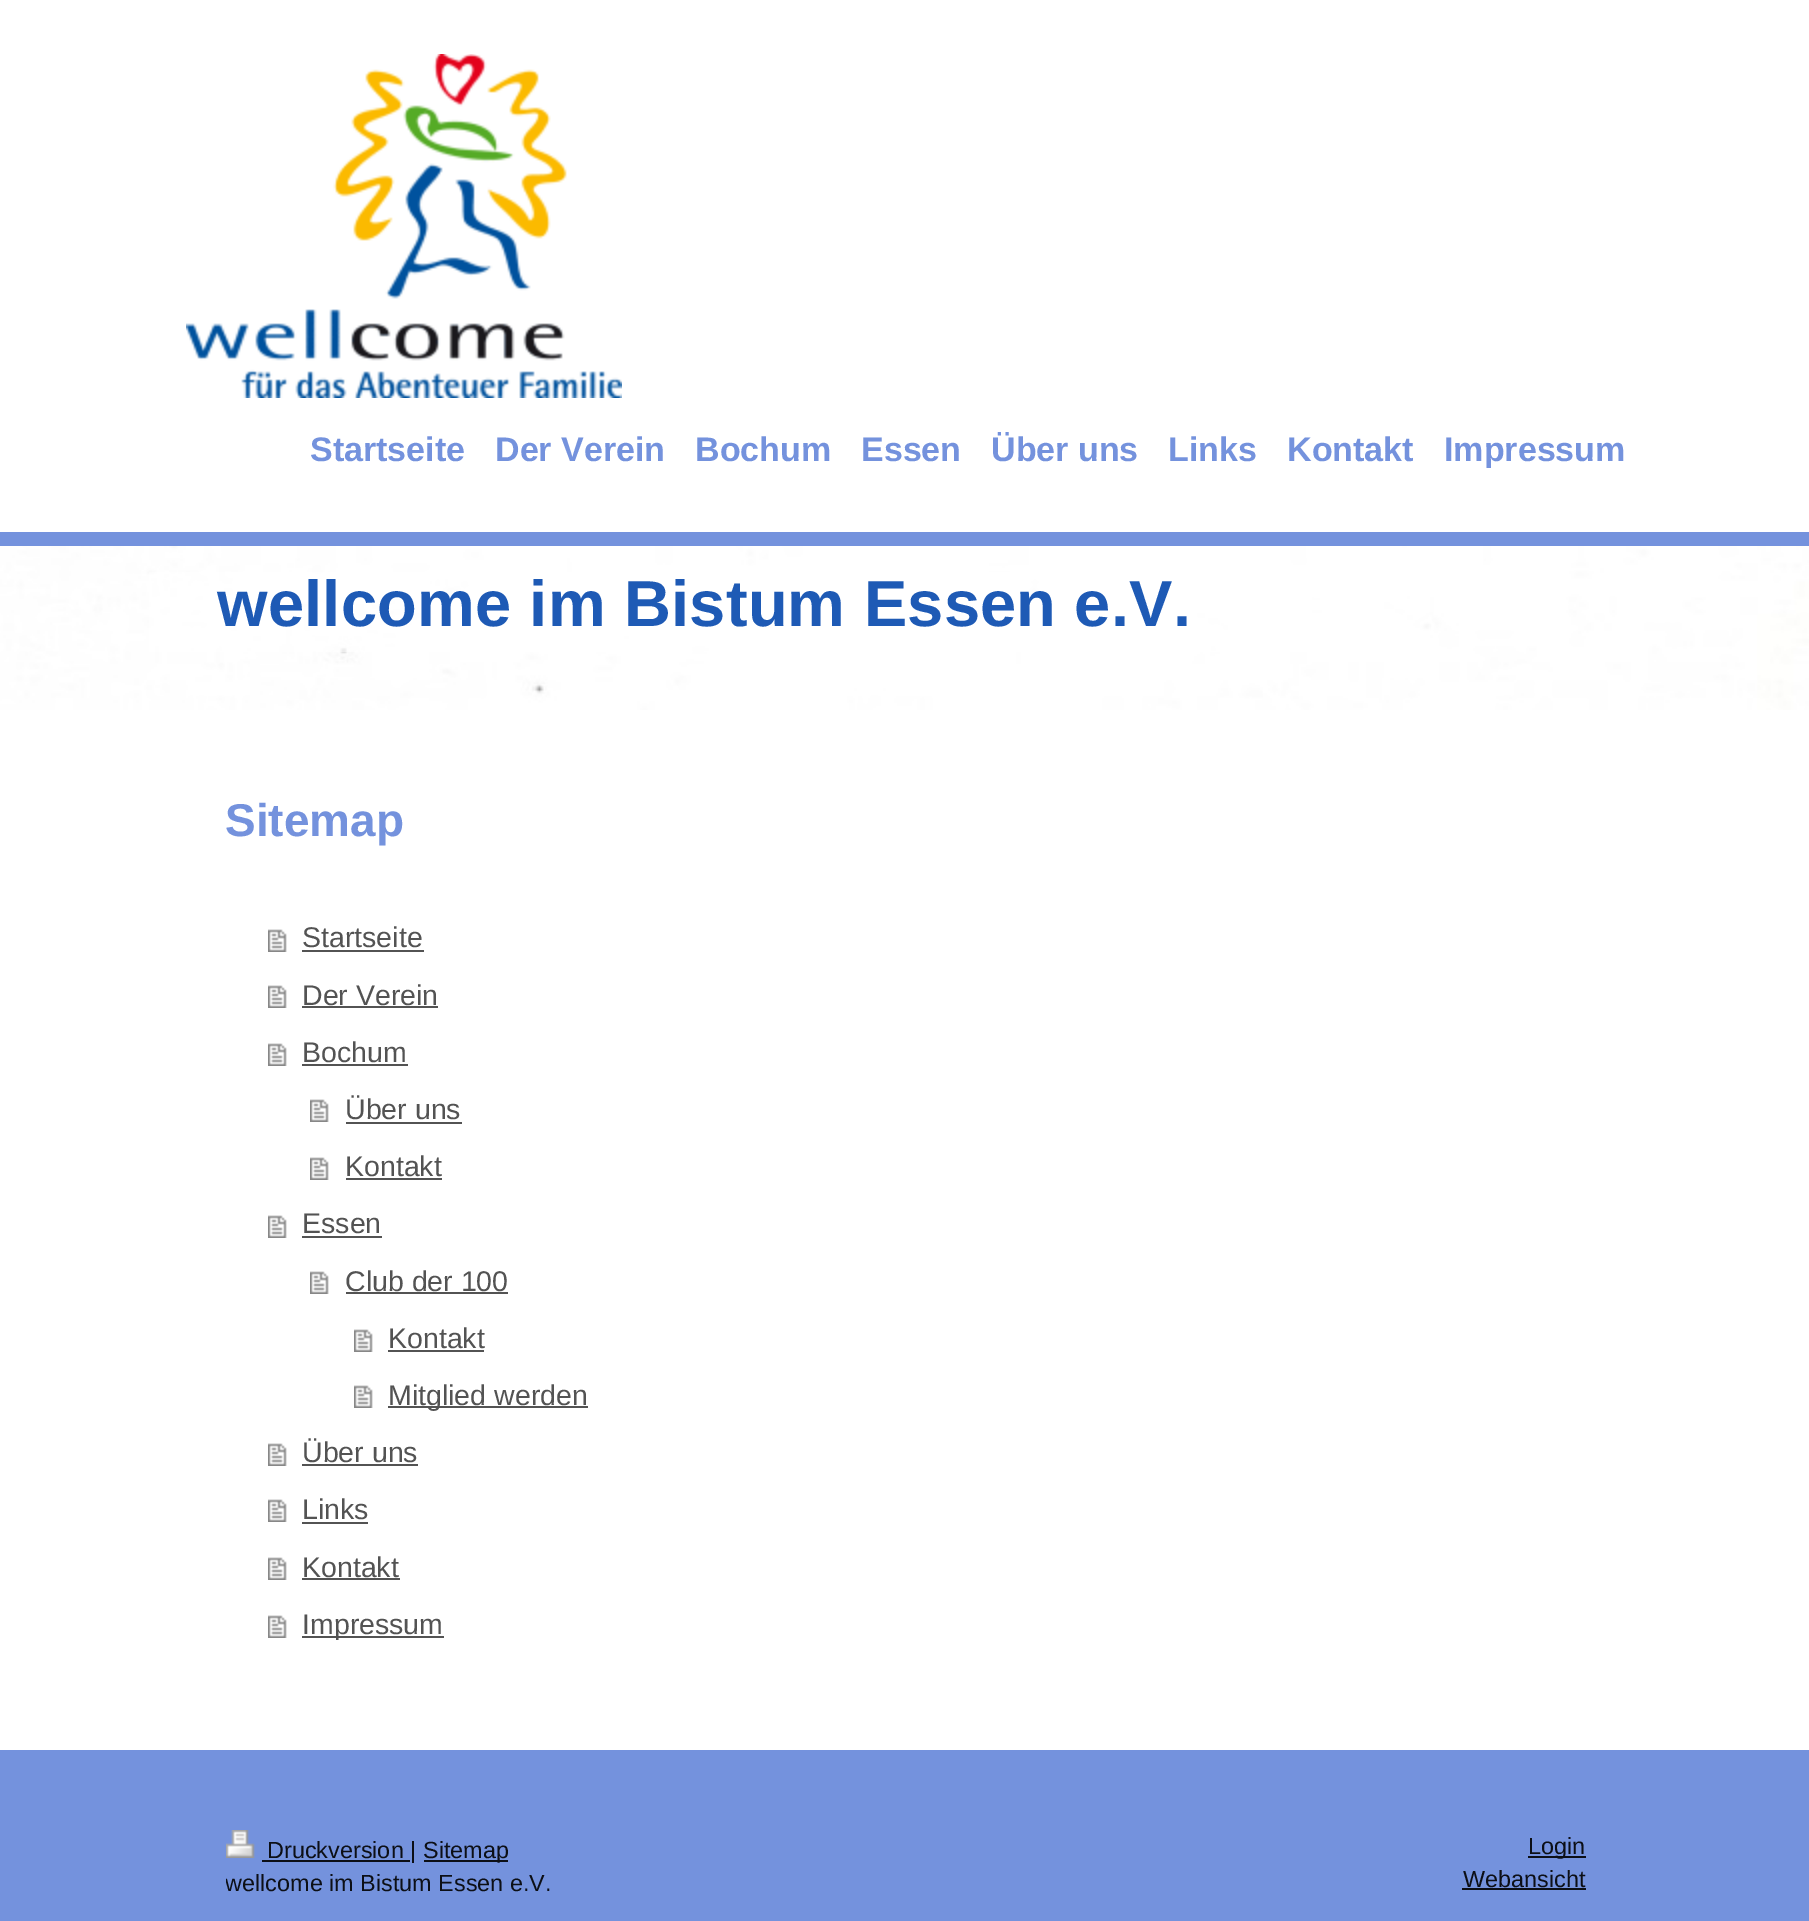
%!PS-Adobe-3.0
%%BoundingBox: 0 0 1809 1921
%%LanguageLevel: 3
%%Pages: 1
%%EndComments
%%BeginProlog
/setink { dup -16 bitshift 255 div exch dup -8 bitshift 255 and 255 div exch 255 and 255 div setrgbcolor } def
/usefont { [ exch dup neg 0 0 3 -1 roll 0 0 ] selectfont } def
/setalpha { dup .setfillconstantalpha .setstrokeconstantalpha } def
/drawimage { 5 dict begin { /h /w /y /x /name } { exch def } forall
  gsave x y translate w h scale
  w h 8 [w 0 0 h 0 0] name (r) file false 3 colorimage grestore end } def
%%EndProlog
%%BeginSetup
<< /PageSize [1809 1921] /PageUsesTransparency true >> setpagedevice
%%EndSetup
%%Page: 1 1
0 .pushpdf14devicefilter
0 1921 translate 1 -1 scale
4 setmiterlimit
16#FFFFFF setink
0 0 1809 1921 rectfill
16#7492DD setink
0 532 1809 14 rectfill
(img1.raw) 186 54 436 344 drawimage
/LiberationSans-Bold 34 usefont
[
    [(Startseite) 310 461]
    [(Der Verein) 495 461]
    [(Bochum) 695 461]
    [(Essen) 861 461]
    [(Über uns) 991 461]
    [(Links) 1168 461]
    [(Kontakt) 1287 461]
    [(Impressum) 1444 461]
] { aload pop moveto show } forall
(img2.raw) 0 546 1809 164 drawimage
0.5 setalpha
16#FFFFFF setink
149 572 1281 80 rectfill
/LiberationSans-Bold 65 usefont
1 setalpha
16#1E5AB5 setink
217 626 moveto 0.2 0 (wellcome im Bistum Essen e.V.) ashow
/LiberationSans-Bold 46 usefont
16#7492DD setink
225 836 moveto (Sitemap) show
(img3.raw) 268 929 19 23 drawimage
/LiberationSans-Regular 28.5 usefont
16#535353 setink
302 947 moveto (Startseite) show
302 950 122 2 rectfill
(img3.raw) 268 985 19 23 drawimage
302 1005 moveto (Der Verein) show
302 1006 136 2 rectfill
(img3.raw) 268 1043 19 23 drawimage
302 1062 moveto (Bochum) show
302 1064 106 2 rectfill
(img3.raw) 310 1099 19 23 drawimage
345 1119 moveto (Über uns) show
346 1122 116 2 rectfill
(img3.raw) 310 1157 19 23 drawimage
345 1176 moveto (Kontakt) show
346 1178 96 2 rectfill
(img3.raw) 268 1215 19 23 drawimage
302 1233 moveto (Essen) show
302 1236 80 2 rectfill
(img3.raw) 310 1271 19 23 drawimage
345 1291 moveto (Club der 100) show
346 1292 162 2 rectfill
(img3.raw) 354 1329 19 23 drawimage
388 1348 moveto (Kontakt) show
388 1350 96 2 rectfill
(img3.raw) 354 1385 19 23 drawimage
388 1406 200 2 rectfill
388 1405 moveto (Mitglied werden) show
(img3.raw) 268 1443 19 23 drawimage
302 1462 moveto (Über uns) show
302 1464 116 2 rectfill
(img3.raw) 268 1499 19 23 drawimage
302 1519 moveto (Links) show
302 1522 66 2 rectfill
(img3.raw) 268 1557 19 23 drawimage
302 1577 moveto (Kontakt) show
302 1578 98 2 rectfill
(img3.raw) 268 1615 19 23 drawimage
302 1636 142 2 rectfill
302 1634 moveto (Impressum) show
16#7492DD setink
0 1750 1809 171 rectfill
(img4.raw) 226 1830 29 28 drawimage
16#0C0F16 setink
262 1860 148 2 rectfill
/LiberationSans-Regular 23.4 usefont
267 1858 moveto (Druckversion |) show
424 1860 84 2 rectfill
423 1858 moveto (Sitemap) show
gsave
226 1830 1360 70 rectclip
225 1891 moveto (wellcome im Bistum Essen e.V.) show
grestore
1528 1856 58 2 rectfill
1528 1854 moveto (Login) show
1463 1887 moveto (Webansicht) show
1462 1888 124 2 rectfill
.poppdf14devicefilter showpage
%%EOF
